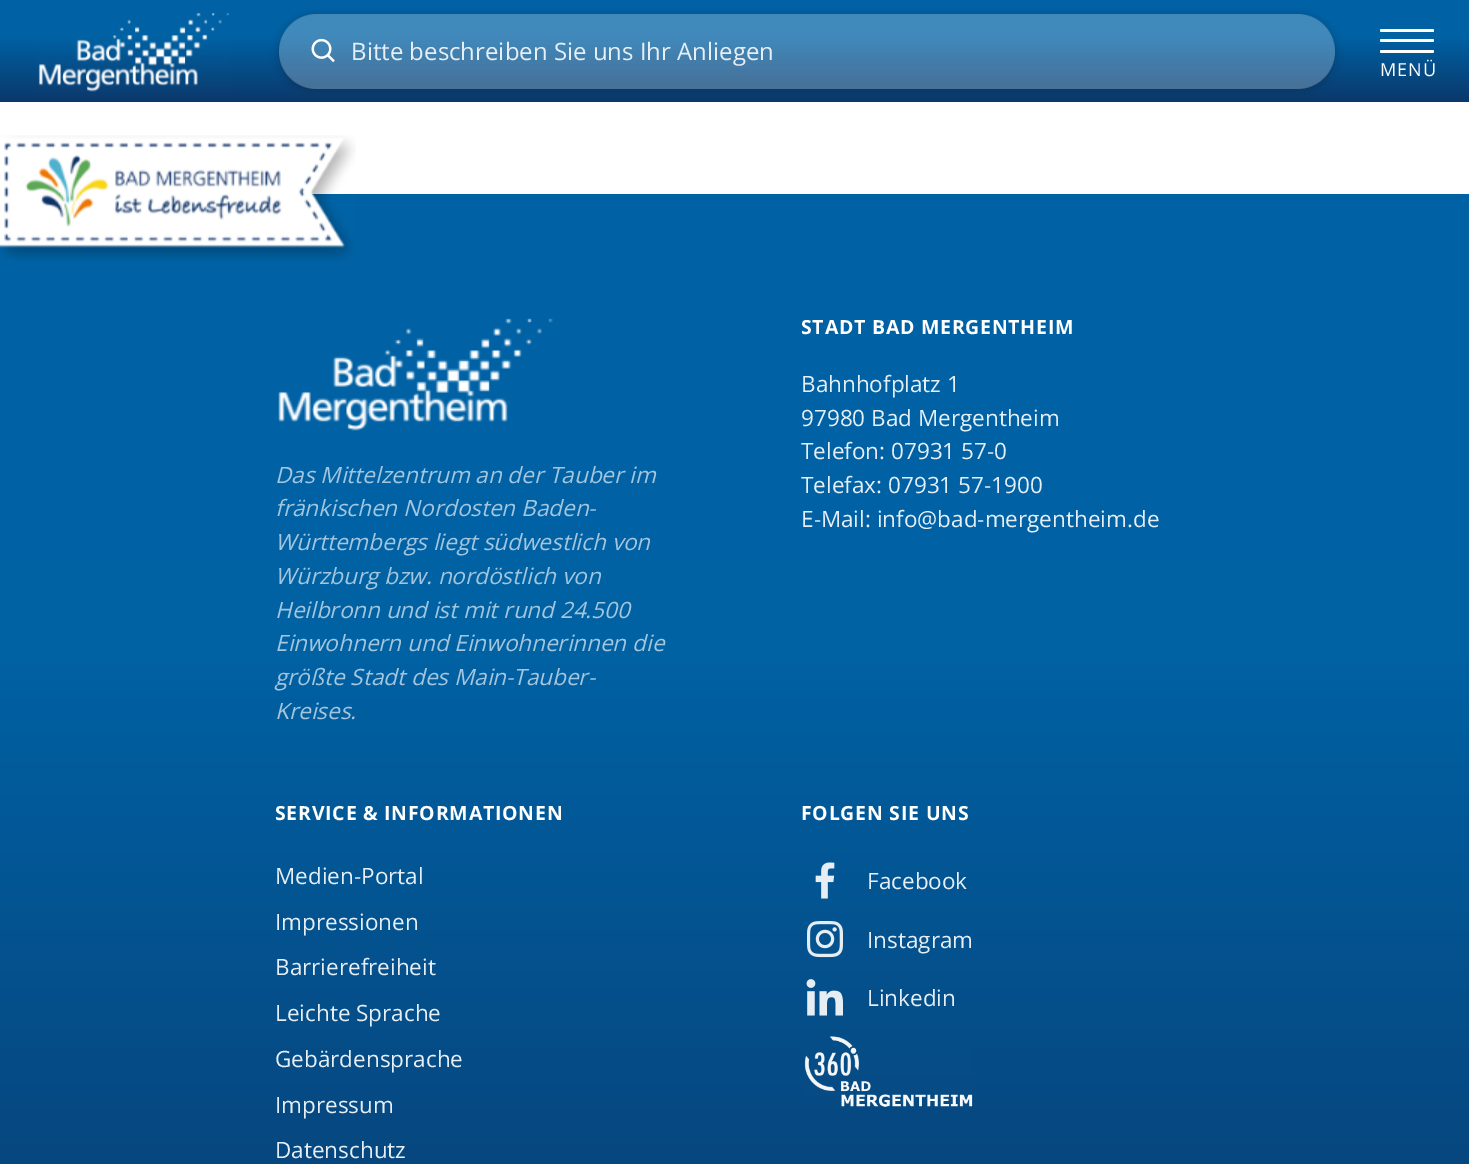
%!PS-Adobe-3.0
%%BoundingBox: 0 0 1469 1164
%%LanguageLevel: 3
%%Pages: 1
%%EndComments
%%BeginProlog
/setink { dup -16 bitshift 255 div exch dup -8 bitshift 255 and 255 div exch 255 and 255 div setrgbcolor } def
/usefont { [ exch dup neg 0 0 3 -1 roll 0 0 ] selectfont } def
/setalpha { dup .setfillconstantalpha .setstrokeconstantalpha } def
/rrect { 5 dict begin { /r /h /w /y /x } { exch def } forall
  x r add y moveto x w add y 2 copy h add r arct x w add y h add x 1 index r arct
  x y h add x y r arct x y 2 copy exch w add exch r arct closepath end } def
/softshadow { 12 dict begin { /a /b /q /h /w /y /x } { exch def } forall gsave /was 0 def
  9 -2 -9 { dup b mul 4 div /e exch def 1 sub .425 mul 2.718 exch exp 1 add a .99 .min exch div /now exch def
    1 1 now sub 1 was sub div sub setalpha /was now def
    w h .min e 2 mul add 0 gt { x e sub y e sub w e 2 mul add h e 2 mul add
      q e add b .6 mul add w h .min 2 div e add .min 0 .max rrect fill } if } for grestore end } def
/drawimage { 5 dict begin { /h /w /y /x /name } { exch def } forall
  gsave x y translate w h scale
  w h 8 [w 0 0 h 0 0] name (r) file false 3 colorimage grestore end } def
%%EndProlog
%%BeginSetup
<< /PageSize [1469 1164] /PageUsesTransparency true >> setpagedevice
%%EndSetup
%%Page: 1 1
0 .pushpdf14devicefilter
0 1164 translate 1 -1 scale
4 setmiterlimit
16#FFFFFF setink
0 0 1469 1164 rectfill
gsave 0 0 moveto 1469 0 lineto 1469 102 lineto 0 102 lineto closepath clip newpath
<< /ShadingType 2 /ColorSpace /DeviceRGB /Coords [735 0 735 102] /Extend [true true] /Function << /FunctionType 3 /Domain [0 1] /Functions [<< /FunctionType 2 /Domain [0 1] /C0 [0 0.388 0.651] /C1 [0 0.38 0.639] /N 1 >> << /FunctionType 2 /Domain [0 1] /C0 [0 0.38 0.639] /C1 [0.043 0.22 0.416] /N 1 >>] /Bounds [0.37] /Encode [0 1 0 1] >> >> shfill grestore
(img1.raw) 38 13 192 79 drawimage
gsave
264 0 moveto 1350 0 lineto 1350 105 lineto 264 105 lineto closepath 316.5 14 moveto 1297.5 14 lineto 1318 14 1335 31 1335 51.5 curveto 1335 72 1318 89 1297.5 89 curveto 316.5 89 lineto 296 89 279 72 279 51.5 curveto 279 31 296 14 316.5 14 curveto closepath eoclip newpath
16#000000 setink
279 15 1056 75 37.5 4.5 0.2 softshadow
grestore
0.25 setalpha
279 14 1056 75 37.5 rrect fill
1 setalpha
(img2.raw) 311 38 24 25 drawimage
/OpenSans-Regular 24 usefont
16#E6EFF6 setink
351 60 moveto (Bitte beschreiben Sie uns Ihr Anliegen) show
16#FFFFFF setink
1380 29 54 3 1.5 rrect fill
1380 39 54 3 1.5 rrect fill
1380 50 54 3 1.5 rrect fill
/OpenSans-Regular 18 usefont
1380 76 moveto 1 0 (MENÜ) ashow
gsave 0 194 moveto 1469 194 lineto 1469 1164 lineto 0 1164 lineto closepath clip newpath
<< /ShadingType 2 /ColorSpace /DeviceRGB /Coords [735 193 735 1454] /Extend [true true] /Function << /FunctionType 3 /Domain [0 1] /Functions [<< /FunctionType 2 /Domain [0 1] /C0 [0 0.388 0.651] /C1 [0 0.38 0.639] /N 1 >> << /FunctionType 2 /Domain [0 1] /C0 [0 0.38 0.639] /C1 [0.043 0.22 0.416] /N 1 >>] /Bounds [0.37] /Encode [0 1 0 1] >> >> shfill grestore
(img3.raw) 0 135 356 127 drawimage
/OpenSans-Bold 19.5 usefont
801 334 moveto 0.75 0 (STADT BAD MERGENTHEIM) ashow
/OpenSans-Regular 22.5 usefont
16#E6EFF6 setink
[
    [(Bahnhofplatz 1) 801 392]
    [(97980 Bad Mergentheim) 801 426]
    [(Telefon: 07931 57-0) 801 459]
    [(Telefax: 07931 57-1900) 801 493]
    [(E-Mail: info@bad-mergentheim.de) 801 527]
] { aload pop moveto show } forall
(img4.raw) 278 318 275 113 drawimage
/OpenSans-Italic 22.5 usefont
16#A3C6DE setink
[
    [(Das Mittelzentrum an der Tauber im) 275 483]
    [(fränkischen Nordosten Baden-) 275 516]
    [(Württembergs liegt südwestlich von) 275 550]
    [(Würzburg bzw. nordöstlich von) 275 584]
    [(Heilbronn und ist mit rund 24.500) 275 618]
    [(Einwohnern und Einwohnerinnen die) 275 651]
    [(größte Stadt des Main-Tauber-) 275 685]
    [(Kreises.) 275 719]
] { aload pop moveto show } forall
/OpenSans-Bold 19.5 usefont
16#FFFFFF setink
275 820 moveto 0.75 0 (SERVICE & INFORMATIONEN) ashow
/OpenSans-Regular 22.5 usefont
16#E6EFF6 setink
[
    [(Medien-Portal) 275 884]
    [(Impressionen) 275 930]
    [(Barrierefreiheit) 275 975]
    [(Leichte Sprache) 275 1021]
    [(Gebärdensprache) 275 1067]
    [(Impressum) 275 1113]
    [(Datenschutz) 275 1158]
] { aload pop moveto show } forall
/OpenSans-Bold 19.5 usefont
16#FFFFFF setink
801 820 moveto 0.75 0 (FOLGEN SIE UNS) ashow
(img5.raw) 815 862 20 37 drawimage
/OpenSans-Regular 22.5 usefont
16#E6EFF6 setink
867 889 moveto (Facebook) show
(img6.raw) 807 921 36 37 drawimage
867 948 moveto (Instagram) show
(img7.raw) 806 979 37 37 drawimage
867 1006 moveto (Linkedin) show
(img8.raw) 804 1036 169 71 drawimage
.poppdf14devicefilter showpage
%%EOF
